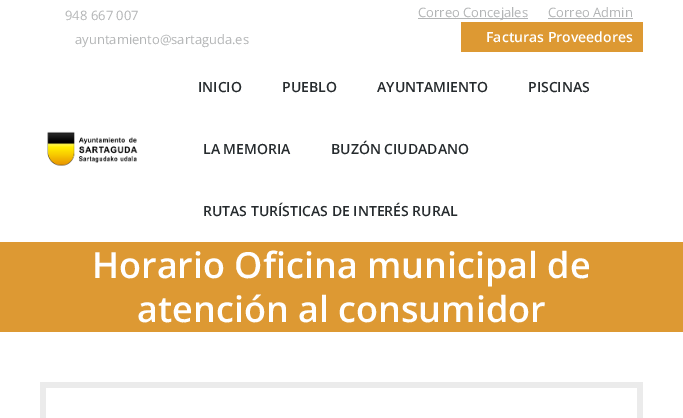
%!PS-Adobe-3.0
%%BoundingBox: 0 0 683 418
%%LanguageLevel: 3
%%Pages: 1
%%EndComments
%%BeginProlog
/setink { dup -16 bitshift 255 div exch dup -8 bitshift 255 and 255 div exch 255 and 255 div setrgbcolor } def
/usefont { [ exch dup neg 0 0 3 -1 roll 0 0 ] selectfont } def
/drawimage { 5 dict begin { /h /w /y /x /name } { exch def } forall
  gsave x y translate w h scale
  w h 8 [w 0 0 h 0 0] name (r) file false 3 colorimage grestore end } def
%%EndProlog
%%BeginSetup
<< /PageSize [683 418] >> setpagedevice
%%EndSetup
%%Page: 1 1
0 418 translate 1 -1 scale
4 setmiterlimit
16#FFFFFF setink
0 0 683 418 rectfill
/OpenSans-Regular 13 usefont
16#B3B5B6 setink
65 20 moveto (948 667 007) show
75 44 moveto (ayuntamiento@sartaguda.es) show
418 18 110 1 rectfill
418 17 moveto (Correo Concejales) show
548 17 moveto (Correo Admin) show
548 18 85 1 rectfill
16#DD9933 setink
461 22 182 30 rectfill
/OpenSans-SemiBold 14 usefont
16#FFFFFF setink
486 42 moveto (Facturas Proveedores) show
(img1.raw) 47 131 91 35 drawimage
16#262B2E setink
[
    [(INICIO) 198 92]
    [(PUEBLO) 282 92]
    [(AYUNTAMIENTO) 377 92]
    [(PISCINAS) 528 92]
    [(LA MEMORIA) 203 154]
    [(BUZÓN CIUDADANO) 331 154]
    [(RUTAS TURÍSTICAS DE INTERÉS RURAL) 203 216]
] { aload pop moveto show } forall
16#DD9933 setink
0 242 683 90 rectfill
/OpenSans-SemiBold 36 usefont
16#FFFFFF setink
92 278 moveto (Horario Oficina municipal de) show
137 322 moveto (atención al consumidor) show
16#EBEBEB setink
40 382 603 36 rectfill
16#FFFFFF setink
46 388 591 30 rectfill
showpage
%%EOF
